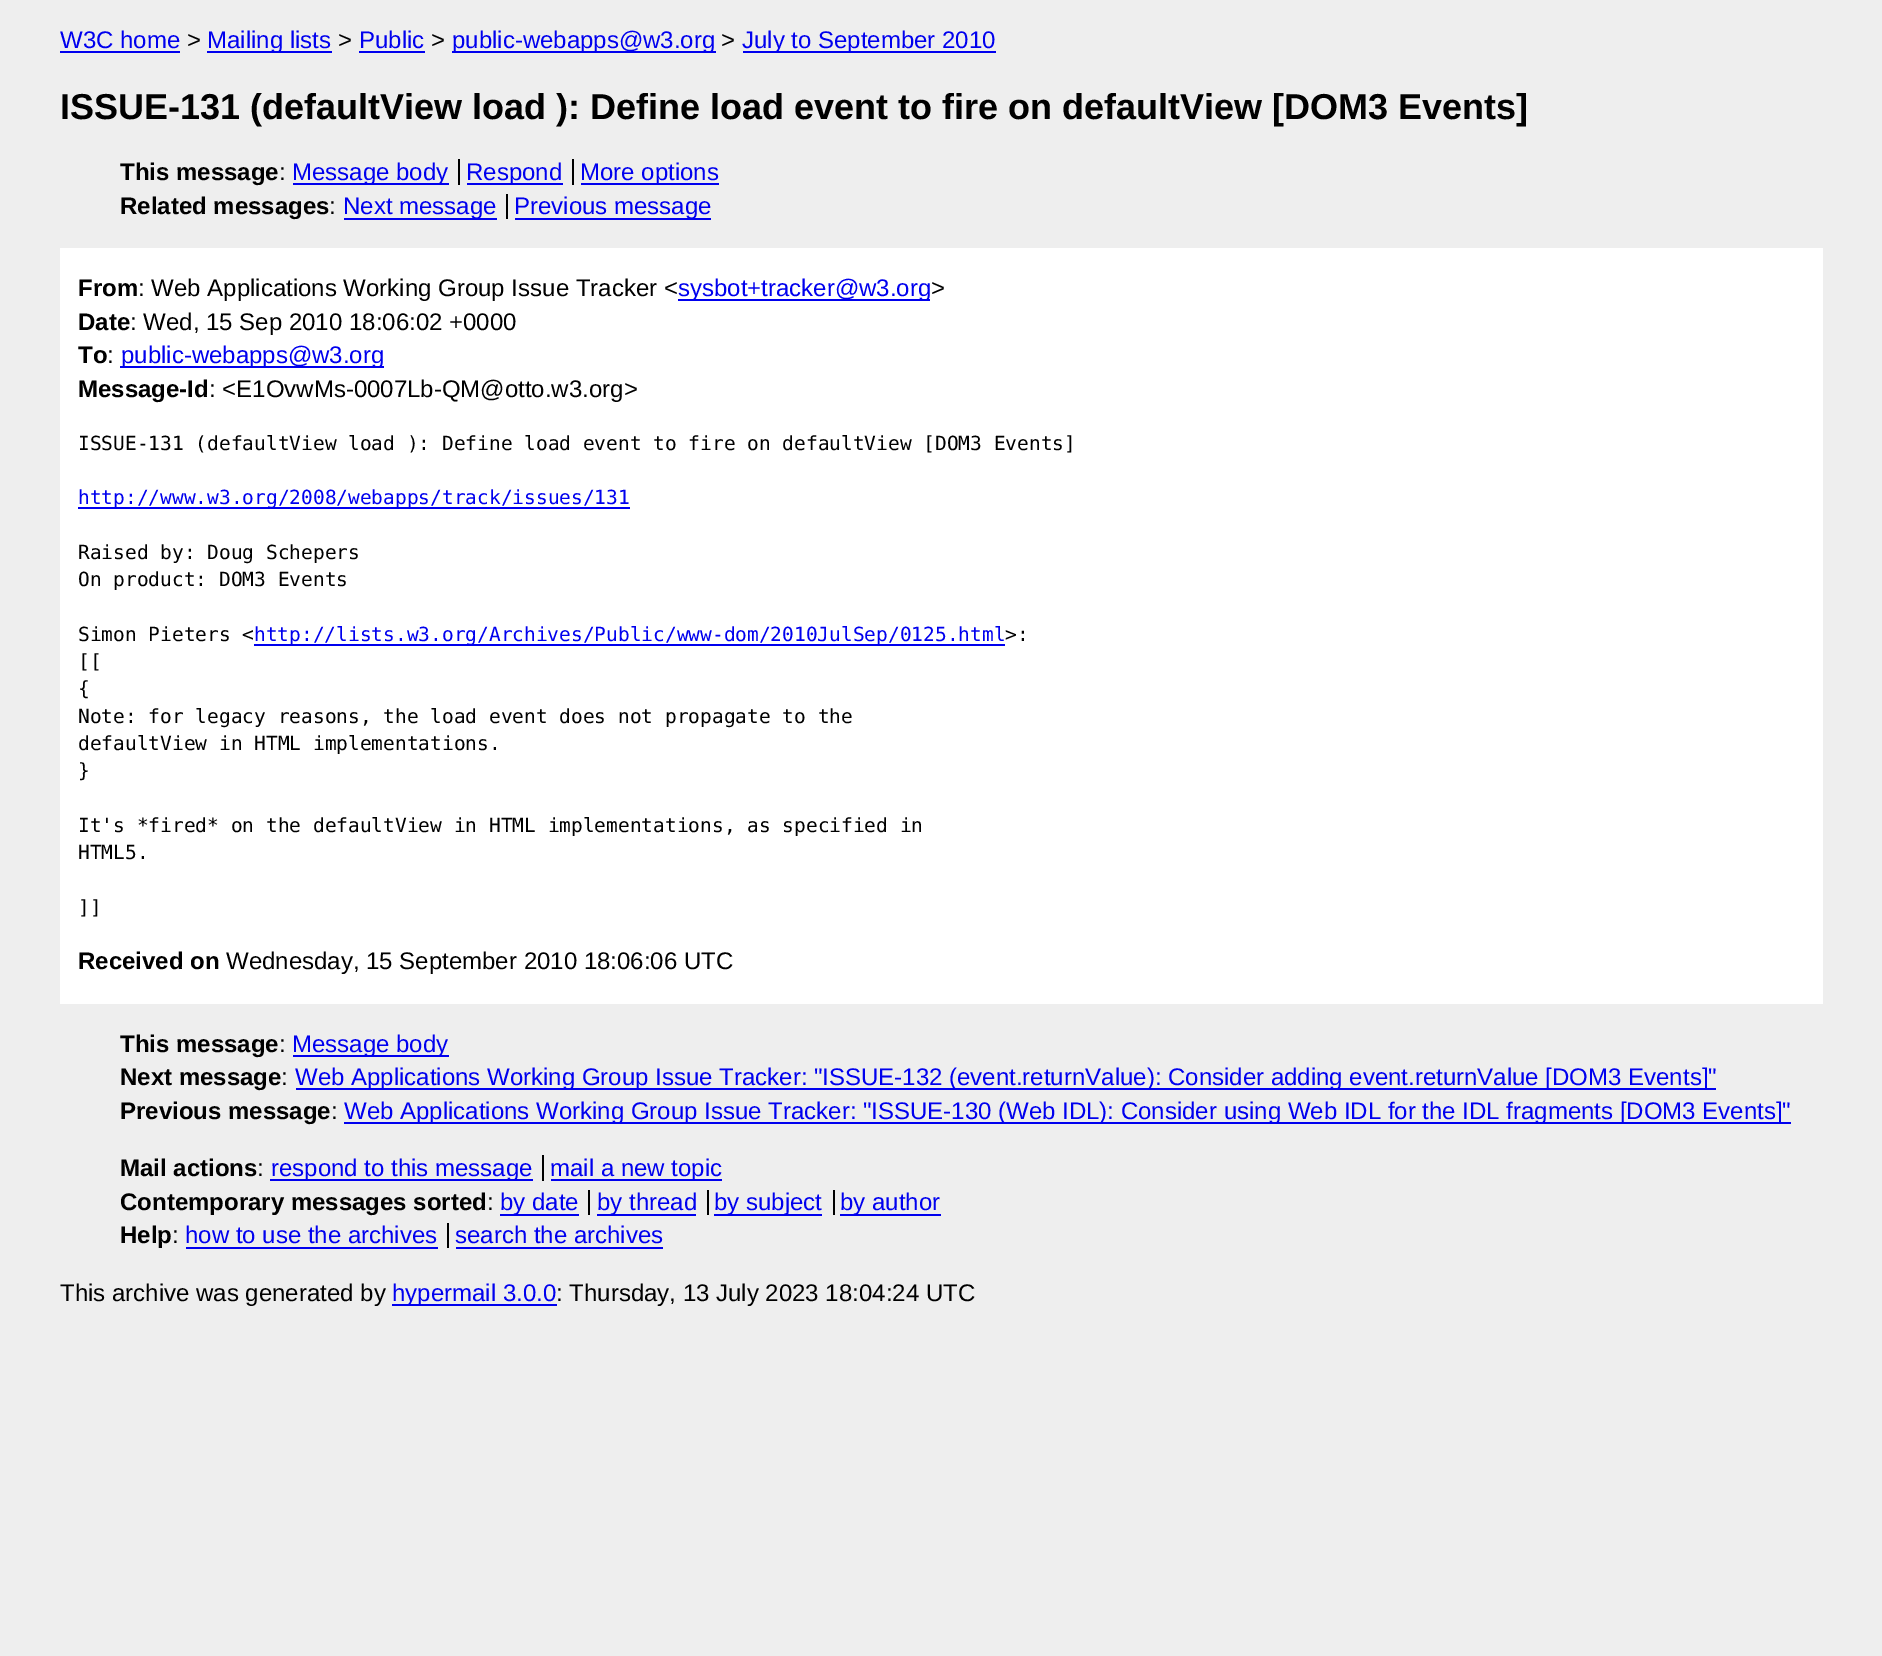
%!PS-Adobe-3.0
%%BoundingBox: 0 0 1882 1656
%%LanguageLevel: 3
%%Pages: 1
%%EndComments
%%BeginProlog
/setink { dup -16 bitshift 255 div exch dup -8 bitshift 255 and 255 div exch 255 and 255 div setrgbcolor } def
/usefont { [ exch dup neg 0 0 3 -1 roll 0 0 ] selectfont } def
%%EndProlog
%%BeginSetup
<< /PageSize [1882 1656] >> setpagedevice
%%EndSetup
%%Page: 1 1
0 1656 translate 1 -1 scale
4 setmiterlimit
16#EEEEEE setink
0 0 1882 1656 rectfill
/LiberationSans-Regular 24 usefont
16#0000EE setink
60 48 moveto (W3C home) show
60 51 120 2 rectfill
16#000000 setink
187 48 moveto (>) show
16#0000EE setink
207 51 125 2 rectfill
207 48 moveto (Mailing lists) show
16#000000 setink
338 48 moveto (>) show
16#0000EE setink
359 48 moveto (Public) show
359 51 66 2 rectfill
16#000000 setink
431 48 moveto (>) show
16#0000EE setink
452 51 264 2 rectfill
452 48 moveto (public-webapps@w3.org) show
16#000000 setink
721 48 moveto (>) show
16#0000EE setink
743 51 253 2 rectfill
742 48 moveto (July to September 2010) show
/LiberationSans-Bold 36 usefont
16#000000 setink
60 119 moveto (ISSUE-131 \(defaultView load \): Define load event to fire on defaultView [DOM3 Events]) show
/LiberationSans-Bold 24 usefont
120 180 moveto (This message) show
/LiberationSans-Regular 24 usefont
279 180 moveto (:) show
16#0000EE setink
293 183 156 2 rectfill
292 180 moveto (Message body) show
467 183 96 2 rectfill
466 180 moveto (Respond) show
16#000000 setink
458 159 2 26 rectfill
16#0000EE setink
581 183 138 2 rectfill
580 180 moveto (More options) show
16#000000 setink
572 159 2 26 rectfill
/LiberationSans-Bold 24 usefont
120 214 moveto (Related messages) show
/LiberationSans-Regular 24 usefont
329 214 moveto (:) show
16#0000EE setink
344 218 153 2 rectfill
343 214 moveto (Next message) show
515 218 196 2 rectfill
514 214 moveto (Previous message) show
16#000000 setink
506 194 2 25 rectfill
16#FFFFFF setink
60 248 1763 756 rectfill
/LiberationSans-Bold 24 usefont
16#000000 setink
78 296 moveto (From) show
/LiberationSans-Regular 24 usefont
138 296 moveto (: Web Applications Working Group Issue Tracker <) show
16#0000EE setink
678 299 252 2 rectfill
678 296 moveto (sysbot+tracker@w3.org) show
16#000000 setink
931 296 moveto (>) show
/LiberationSans-Bold 24 usefont
78 330 moveto (Date) show
/LiberationSans-Regular 24 usefont
130 330 moveto (: Wed, 15 Sep 2010 18:06:02 +0000) show
/LiberationSans-Bold 24 usefont
78 363 moveto (To) show
/LiberationSans-Regular 24 usefont
107 363 moveto (:) show
16#0000EE setink
120 366 264 2 rectfill
121 363 moveto (public-webapps@w3.org) show
/LiberationSans-Bold 24 usefont
16#000000 setink
78 397 moveto (Message-Id) show
/LiberationSans-Regular 24 usefont
209 397 moveto (: <E1OvwMs-0007Lb-QM@otto.w3.org>) show
/DejaVuSansMono-Regular 19.5 usefont
78 450 moveto (ISSUE-131 \(defaultView load \): Define load event to fire on defaultView [DOM3 Events]) show
16#0000EE setink
78 507 552 2 rectfill
78 504 moveto (http://www.w3.org/2008/webapps/track/issues/131) show
16#000000 setink
[
    [(Raised by: Doug Schepers) 78 559]
    [(On product: DOM3 Events) 78 586]
    [(Simon Pieters <) 78 641]
] { aload pop moveto show } forall
16#0000EE setink
254 644 751 2 rectfill
254 641 moveto (http://lists.w3.org/Archives/Public/www-dom/2010JulSep/0125.html) show
16#000000 setink
[
    [(>:) 1005 641]
    [([[) 78 668]
    [({) 78 695]
    [(Note: for legacy reasons, the load event does not propagate to the) 78 723]
    [(defaultView in HTML implementations.) 78 750]
    [(}) 78 777]
    [(It's *fired* on the defaultView in HTML implementations, as specified in) 78 832]
    [(HTML5.) 78 859]
    [(]]) 78 914]
] { aload pop moveto show } forall
/LiberationSans-Bold 24 usefont
78 969 moveto (Received on) show
/LiberationSans-Regular 24 usefont
226 969 moveto (Wednesday, 15 September 2010 18:06:06 UTC) show
/LiberationSans-Bold 24 usefont
120 1052 moveto (This message) show
/LiberationSans-Regular 24 usefont
279 1052 moveto (:) show
16#0000EE setink
293 1055 156 2 rectfill
292 1052 moveto (Message body) show
/LiberationSans-Bold 24 usefont
16#000000 setink
120 1085 moveto (Next message) show
/LiberationSans-Regular 24 usefont
281 1085 moveto (:) show
16#0000EE setink
296 1088 1420 2 rectfill
295 1085 moveto (Web Applications Working Group Issue Tracker: "ISSUE-132 \(event.returnValue\): Consider adding event.returnValue [DOM3 Events]") show
/LiberationSans-Bold 24 usefont
16#000000 setink
120 1119 moveto (Previous message) show
/LiberationSans-Regular 24 usefont
331 1119 moveto (:) show
16#0000EE setink
344 1122 1447 2 rectfill
344 1119 moveto (Web Applications Working Group Issue Tracker: "ISSUE-130 \(Web IDL\): Consider using Web IDL for the IDL fragments [DOM3 Events]") show
/LiberationSans-Bold 24 usefont
16#000000 setink
120 1176 moveto (Mail actions) show
/LiberationSans-Regular 24 usefont
257 1176 moveto (:) show
16#0000EE setink
270 1179 263 2 rectfill
271 1176 moveto (respond to this message) show
551 1179 171 2 rectfill
550 1176 moveto (mail a new topic) show
16#000000 setink
542 1155 2 26 rectfill
/LiberationSans-Bold 24 usefont
120 1210 moveto (Contemporary messages sorted) show
/LiberationSans-Regular 24 usefont
487 1210 moveto (:) show
16#0000EE setink
500 1214 79 2 rectfill
500 1210 moveto (by date) show
597 1214 99 2 rectfill
597 1210 moveto (by thread) show
16#000000 setink
588 1190 2 25 rectfill
16#0000EE setink
714 1214 108 2 rectfill
714 1210 moveto (by subject) show
16#000000 setink
707 1190 2 25 rectfill
16#0000EE setink
840 1214 101 2 rectfill
840 1210 moveto (by author) show
16#000000 setink
833 1190 2 25 rectfill
/LiberationSans-Bold 24 usefont
120 1243 moveto (Help) show
/LiberationSans-Regular 24 usefont
172 1243 moveto (:) show
16#0000EE setink
185 1243 moveto (how to use the archives) show
186 1247 252 2 rectfill
455 1243 moveto (search the archives) show
16#000000 setink
447 1223 2 25 rectfill
16#0000EE setink
456 1247 207 2 rectfill
16#000000 setink
60 1301 moveto (This archive was generated by) show
16#0000EE setink
392 1304 165 2 rectfill
392 1301 moveto (hypermail 3.0.0) show
16#000000 setink
556 1301 moveto (: Thursday, 13 July 2023 18:04:24 UTC) show
showpage
%%EOF
